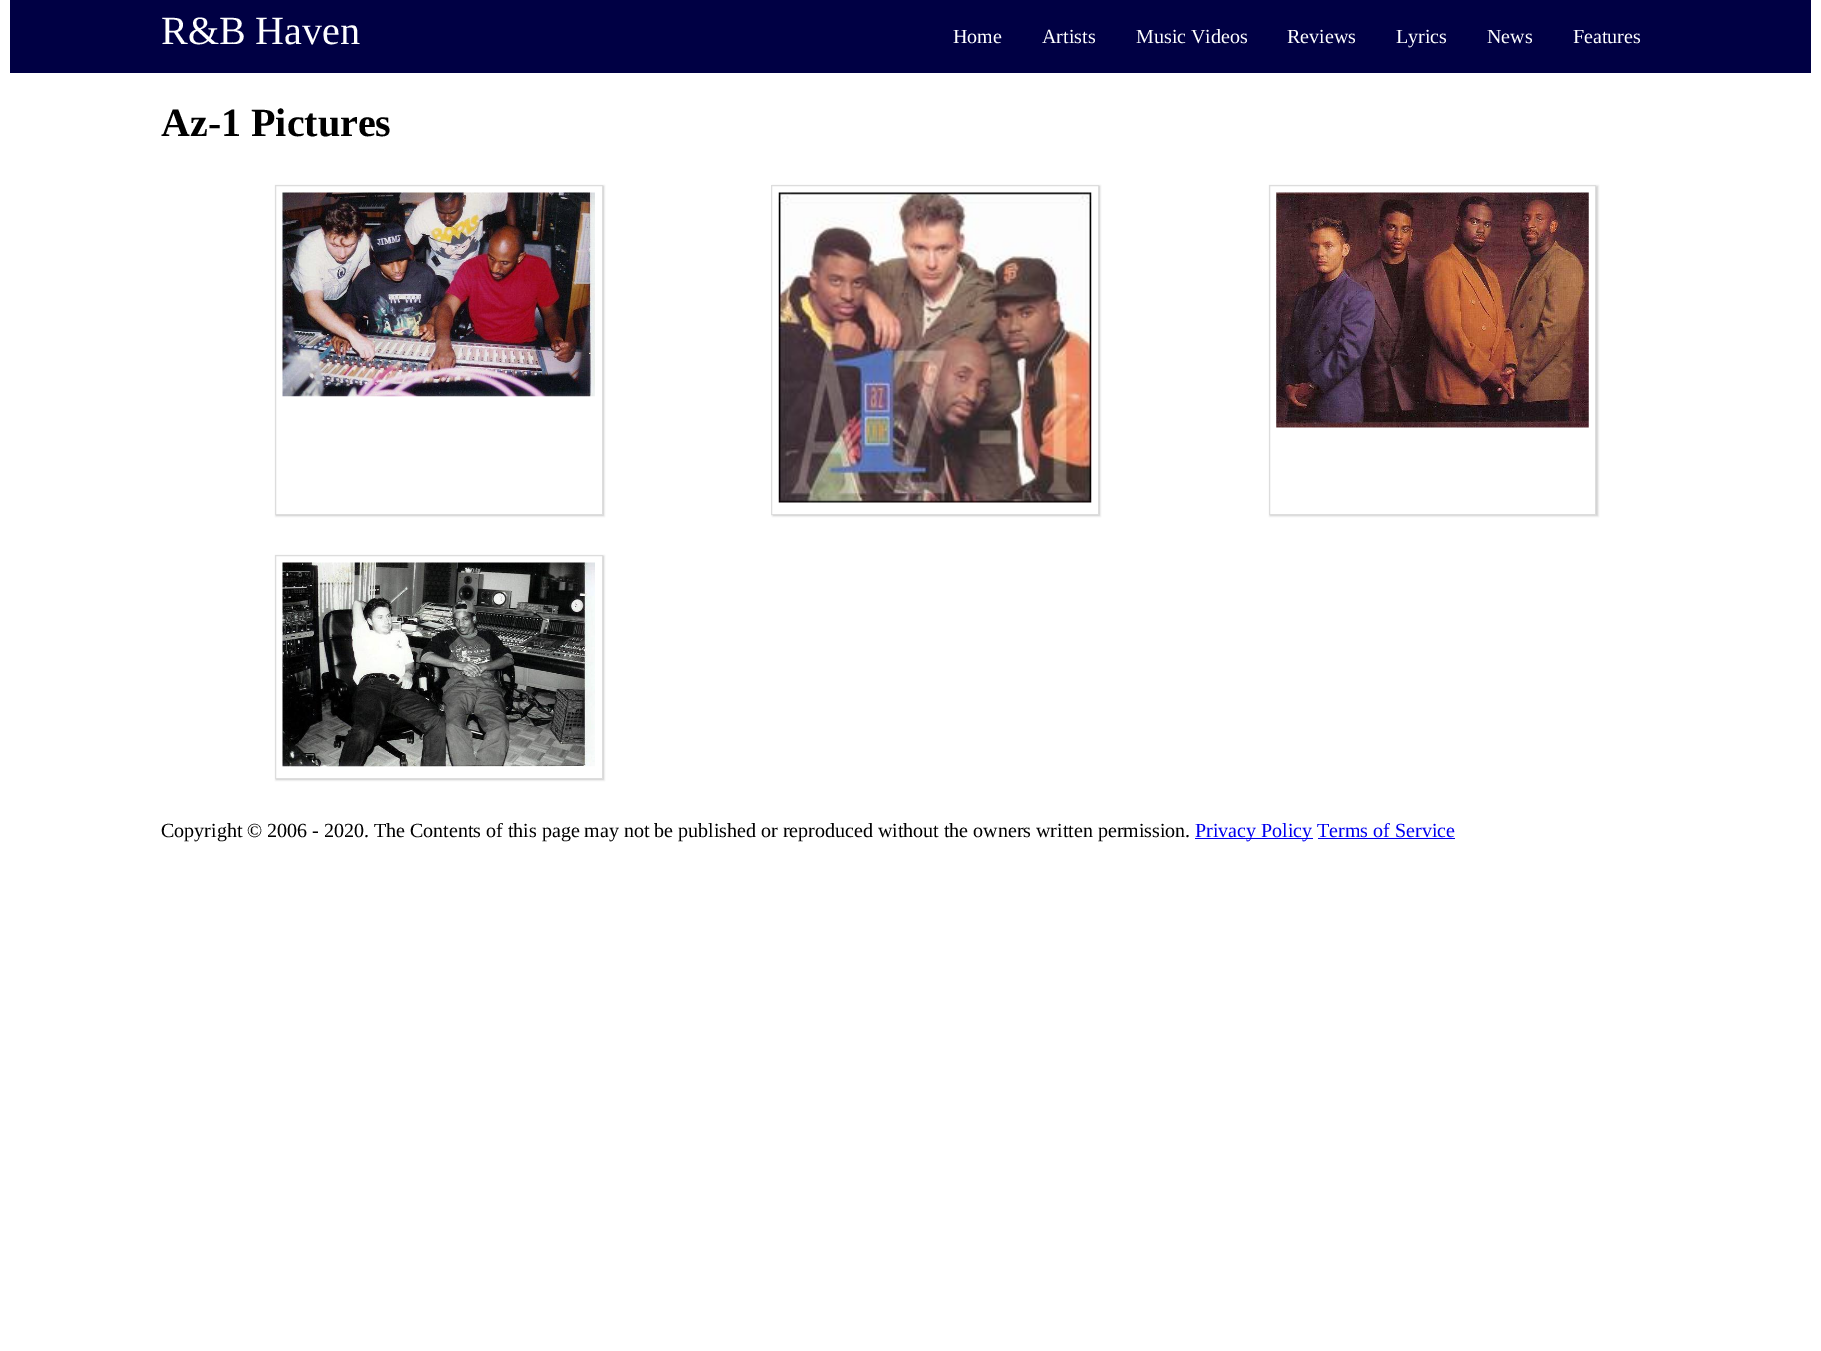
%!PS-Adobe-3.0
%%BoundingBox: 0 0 1821 1351
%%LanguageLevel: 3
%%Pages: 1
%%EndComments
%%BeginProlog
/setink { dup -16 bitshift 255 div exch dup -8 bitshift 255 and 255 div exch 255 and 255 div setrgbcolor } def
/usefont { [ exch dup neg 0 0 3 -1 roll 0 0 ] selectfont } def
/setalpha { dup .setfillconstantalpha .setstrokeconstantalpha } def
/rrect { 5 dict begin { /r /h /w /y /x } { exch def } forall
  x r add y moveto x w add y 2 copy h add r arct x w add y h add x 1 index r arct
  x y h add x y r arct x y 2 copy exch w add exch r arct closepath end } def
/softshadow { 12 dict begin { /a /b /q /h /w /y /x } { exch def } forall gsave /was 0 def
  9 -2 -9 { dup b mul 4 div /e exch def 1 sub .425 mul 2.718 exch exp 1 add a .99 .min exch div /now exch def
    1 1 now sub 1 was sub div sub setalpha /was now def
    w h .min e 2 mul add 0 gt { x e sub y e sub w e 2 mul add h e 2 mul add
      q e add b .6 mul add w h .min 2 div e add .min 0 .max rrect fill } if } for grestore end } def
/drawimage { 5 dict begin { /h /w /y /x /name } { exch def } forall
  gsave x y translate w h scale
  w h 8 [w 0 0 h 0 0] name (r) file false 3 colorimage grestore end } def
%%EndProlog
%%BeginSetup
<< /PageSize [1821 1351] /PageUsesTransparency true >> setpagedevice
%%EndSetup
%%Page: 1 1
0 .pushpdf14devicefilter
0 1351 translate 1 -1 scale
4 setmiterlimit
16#FFFFFF setink
0 0 1821 1351 rectfill
16#000044 setink
10 0 1801 73 rectfill
/LiberationSerif-Regular 40 usefont
16#FFFFFF setink
161 44 moveto (R&B Haven) show
/LiberationSerif-Regular 20 usefont
[
    [(Home) 953 43]
    [(Artists) 1042 43]
    [(Music Videos) 1136 43]
    [(Reviews) 1287 43]
    [(Lyrics) 1396 43]
    [(News) 1487 43]
    [(Features) 1573 43]
] { aload pop moveto show } forall
/LiberationSerif-Bold 40 usefont
16#000000 setink
161 136 moveto (Az-1 Pictures) show
gsave
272 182 moveto 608 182 lineto 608 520 lineto 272 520 lineto closepath 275 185 moveto 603 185 lineto 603 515 lineto 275 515 lineto closepath eoclip newpath
16#CCCCCC setink
276 186 328 330 0 1 1 softshadow
grestore
0.67 setalpha
16#CCCCCC setink
275.5 185.5 327 329 rectstroke
1 setalpha
(img1.raw) 282 192 313 205 drawimage
gsave
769 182 moveto 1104 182 lineto 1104 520 lineto 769 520 lineto closepath 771 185 moveto 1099 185 lineto 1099 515 lineto 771 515 lineto closepath eoclip newpath
773 186 327 330 0 1 1 softshadow
grestore
0.67 setalpha
771.5 185.5 327 329 rectstroke
1 setalpha
(img2.raw) 778 192 314 311 drawimage
gsave
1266 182 moveto 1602 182 lineto 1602 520 lineto 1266 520 lineto closepath 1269 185 moveto 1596 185 lineto 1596 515 lineto 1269 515 lineto closepath eoclip newpath
1270 186 328 330 0 1 1 softshadow
grestore
16#DDDDDD setink
1269.5 185.5 326 329 rectstroke
(img3.raw) 1276 192 313 236 drawimage
gsave
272 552 moveto 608 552 lineto 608 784 lineto 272 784 lineto closepath 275 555 moveto 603 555 lineto 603 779 lineto 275 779 lineto closepath eoclip newpath
16#CCCCCC setink
276 556 328 224 0 1 1 softshadow
grestore
0.67 setalpha
16#CCCCCC setink
275.5 555.5 327 223 rectstroke
1 setalpha
(img4.raw) 282 562 313 205 drawimage
/LiberationSerif-Regular 20 usefont
16#000000 setink
161 837 moveto (Copyright © 2006 - 2020. The Contents of this page may not be published or reproduced without the owners written permission.) show
16#0000EE setink
1195 838 118 1 rectfill
1195 837 moveto (Privacy Policy Terms of Service) show
1318 838 137 1 rectfill
.poppdf14devicefilter showpage
%%EOF
